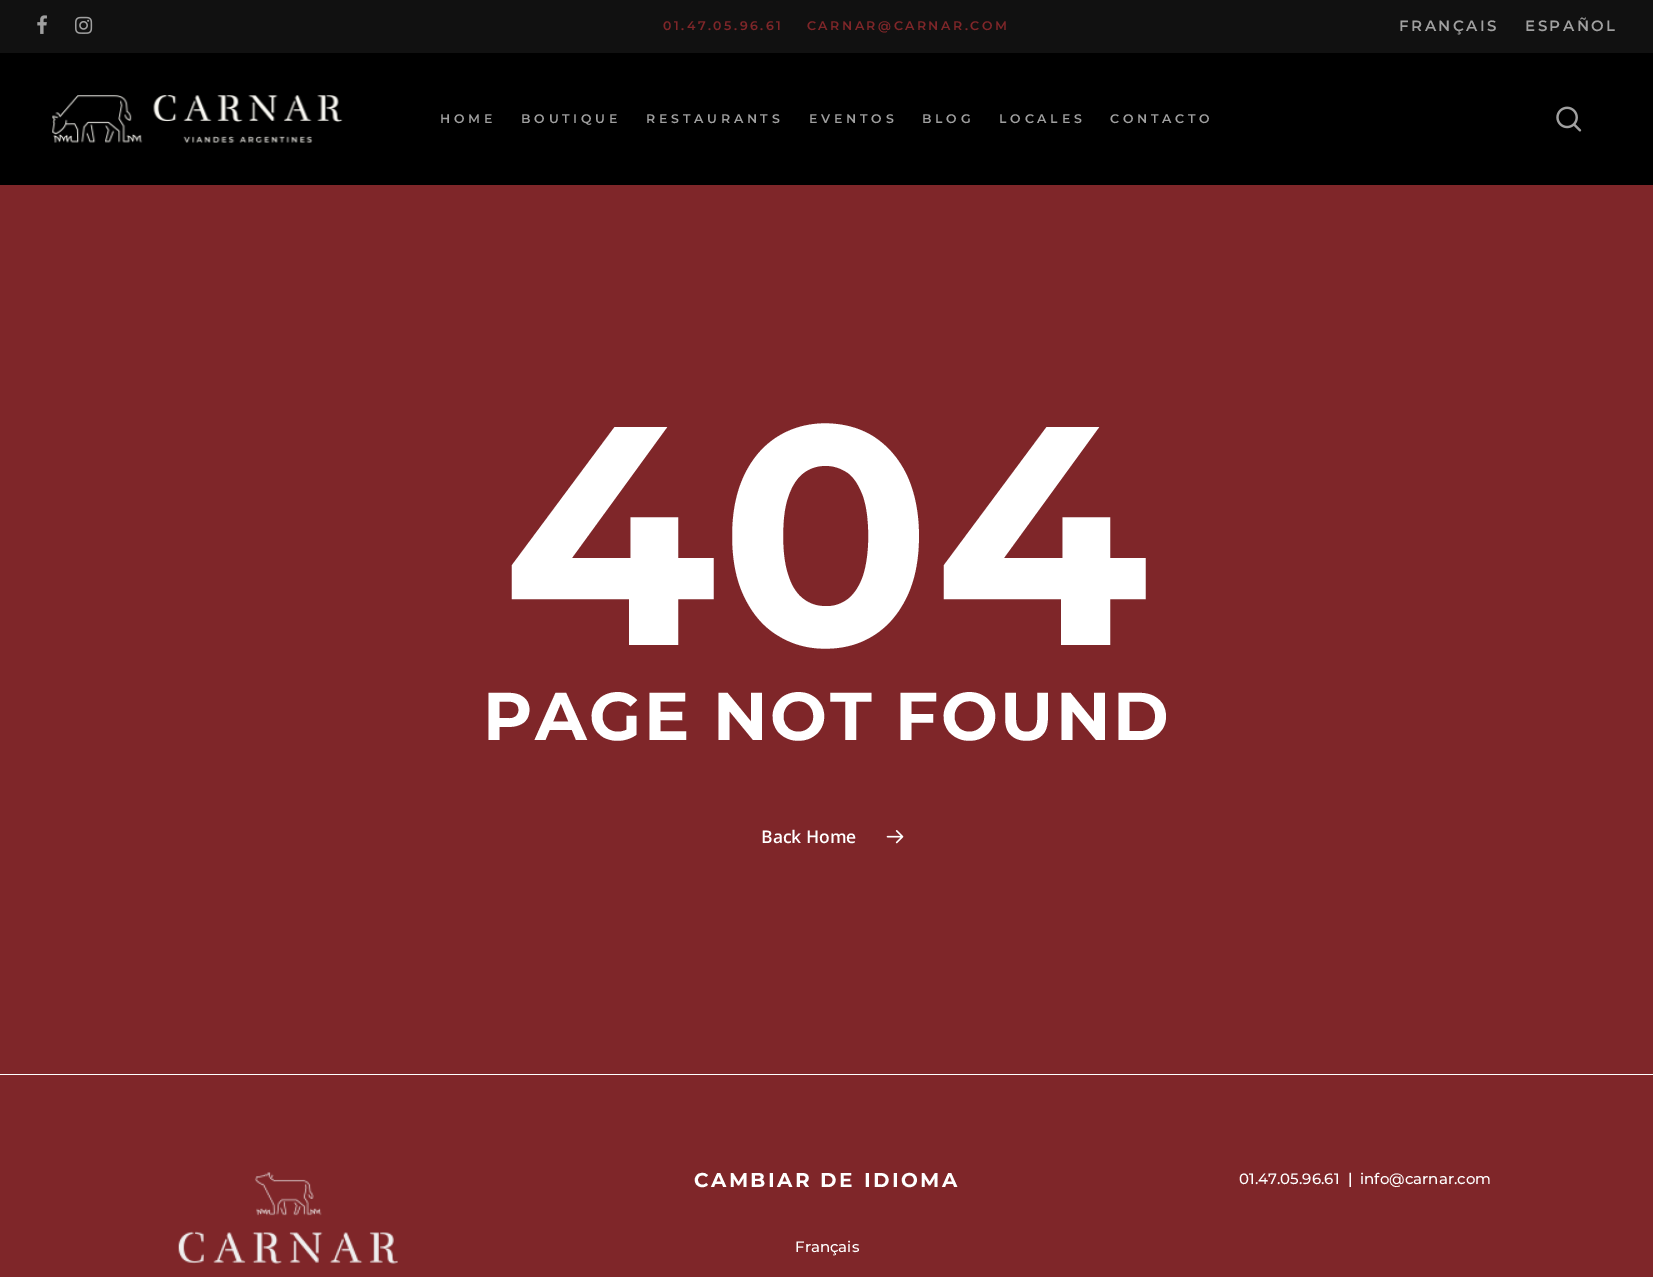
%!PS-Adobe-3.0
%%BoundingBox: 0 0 1653 1277
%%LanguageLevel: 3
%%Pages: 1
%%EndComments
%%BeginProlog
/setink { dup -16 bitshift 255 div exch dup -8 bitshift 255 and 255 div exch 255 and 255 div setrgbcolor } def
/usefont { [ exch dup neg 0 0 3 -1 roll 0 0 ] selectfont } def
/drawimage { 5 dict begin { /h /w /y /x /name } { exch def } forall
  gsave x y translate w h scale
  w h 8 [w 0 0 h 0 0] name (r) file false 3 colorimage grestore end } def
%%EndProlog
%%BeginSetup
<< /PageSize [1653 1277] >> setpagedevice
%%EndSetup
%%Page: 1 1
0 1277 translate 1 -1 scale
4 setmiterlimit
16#7F2629 setink
0 0 1653 1277 rectfill
16#111111 setink
0 0 1653 53 rectfill
(img1.raw) 37 15 10 19 drawimage
(img2.raw) 75 16 18 18 drawimage
/Montserrat-SemiBold 12.5 usefont
16#7F2629 setink
663 30 moveto 2.5 0 (01.47.05.96.61) ashow
807 30 moveto 2.5 0 (CARNAR@CARNAR.COM) ashow
/Montserrat-SemiBold 15 usefont
16#A0A0A0 setink
1399 31 moveto 2.5 0 (FRANÇAIS) ashow
1525 31 moveto 2.5 0 (ESPAÑOL) ashow
16#000000 setink
0 53 1653 132 rectfill
(img3.raw) 52 95 291 48 drawimage
/Montserrat-SemiBold 12.5 usefont
16#A0A0A0 setink
440 123 moveto 3.75 0 (HOME) ashow
521 123 moveto 3.75 0 (BOUTIQUE) ashow
646 123 moveto 3.75 0 (RESTAURANTS) ashow
809 123 moveto 3.75 0 (EVENTOS) ashow
922 123 moveto 3.75 0 (BLOG) ashow
999 123 moveto 3.75 0 (LOCALES) ashow
1110 123 moveto 3.75 0 (CONTACTO) ashow
(img4.raw) 1556 106 26 26 drawimage
/Montserrat-Bold 312.5 usefont
16#FFFFFF setink
502 645 moveto 2.5 0 (404) ashow
/Montserrat-Bold 67.5 usefont
483 740 moveto 2.5 0 (PAGE NOT FOUND) ashow
/OpenSans-SemiBold 17.5 usefont
761 843 moveto (Back Home) show
(img5.raw) 886 830 18 14 drawimage
0 1074 1653 1 rectfill
(img6.raw) 178 1172 220 92 drawimage
/Montserrat-Bold 20 usefont
694 1187 moveto 2.5 0 (CAMBIAR DE IDIOMA) ashow
/Montserrat-Medium 15 usefont
[
    [(Français) 795 1252]
    [(01.47.05.96.61) 1239 1184]
    [(|) 1348 1184]
    [(info@carnar.com) 1360 1184]
] { aload pop moveto show } forall
showpage
%%EOF
